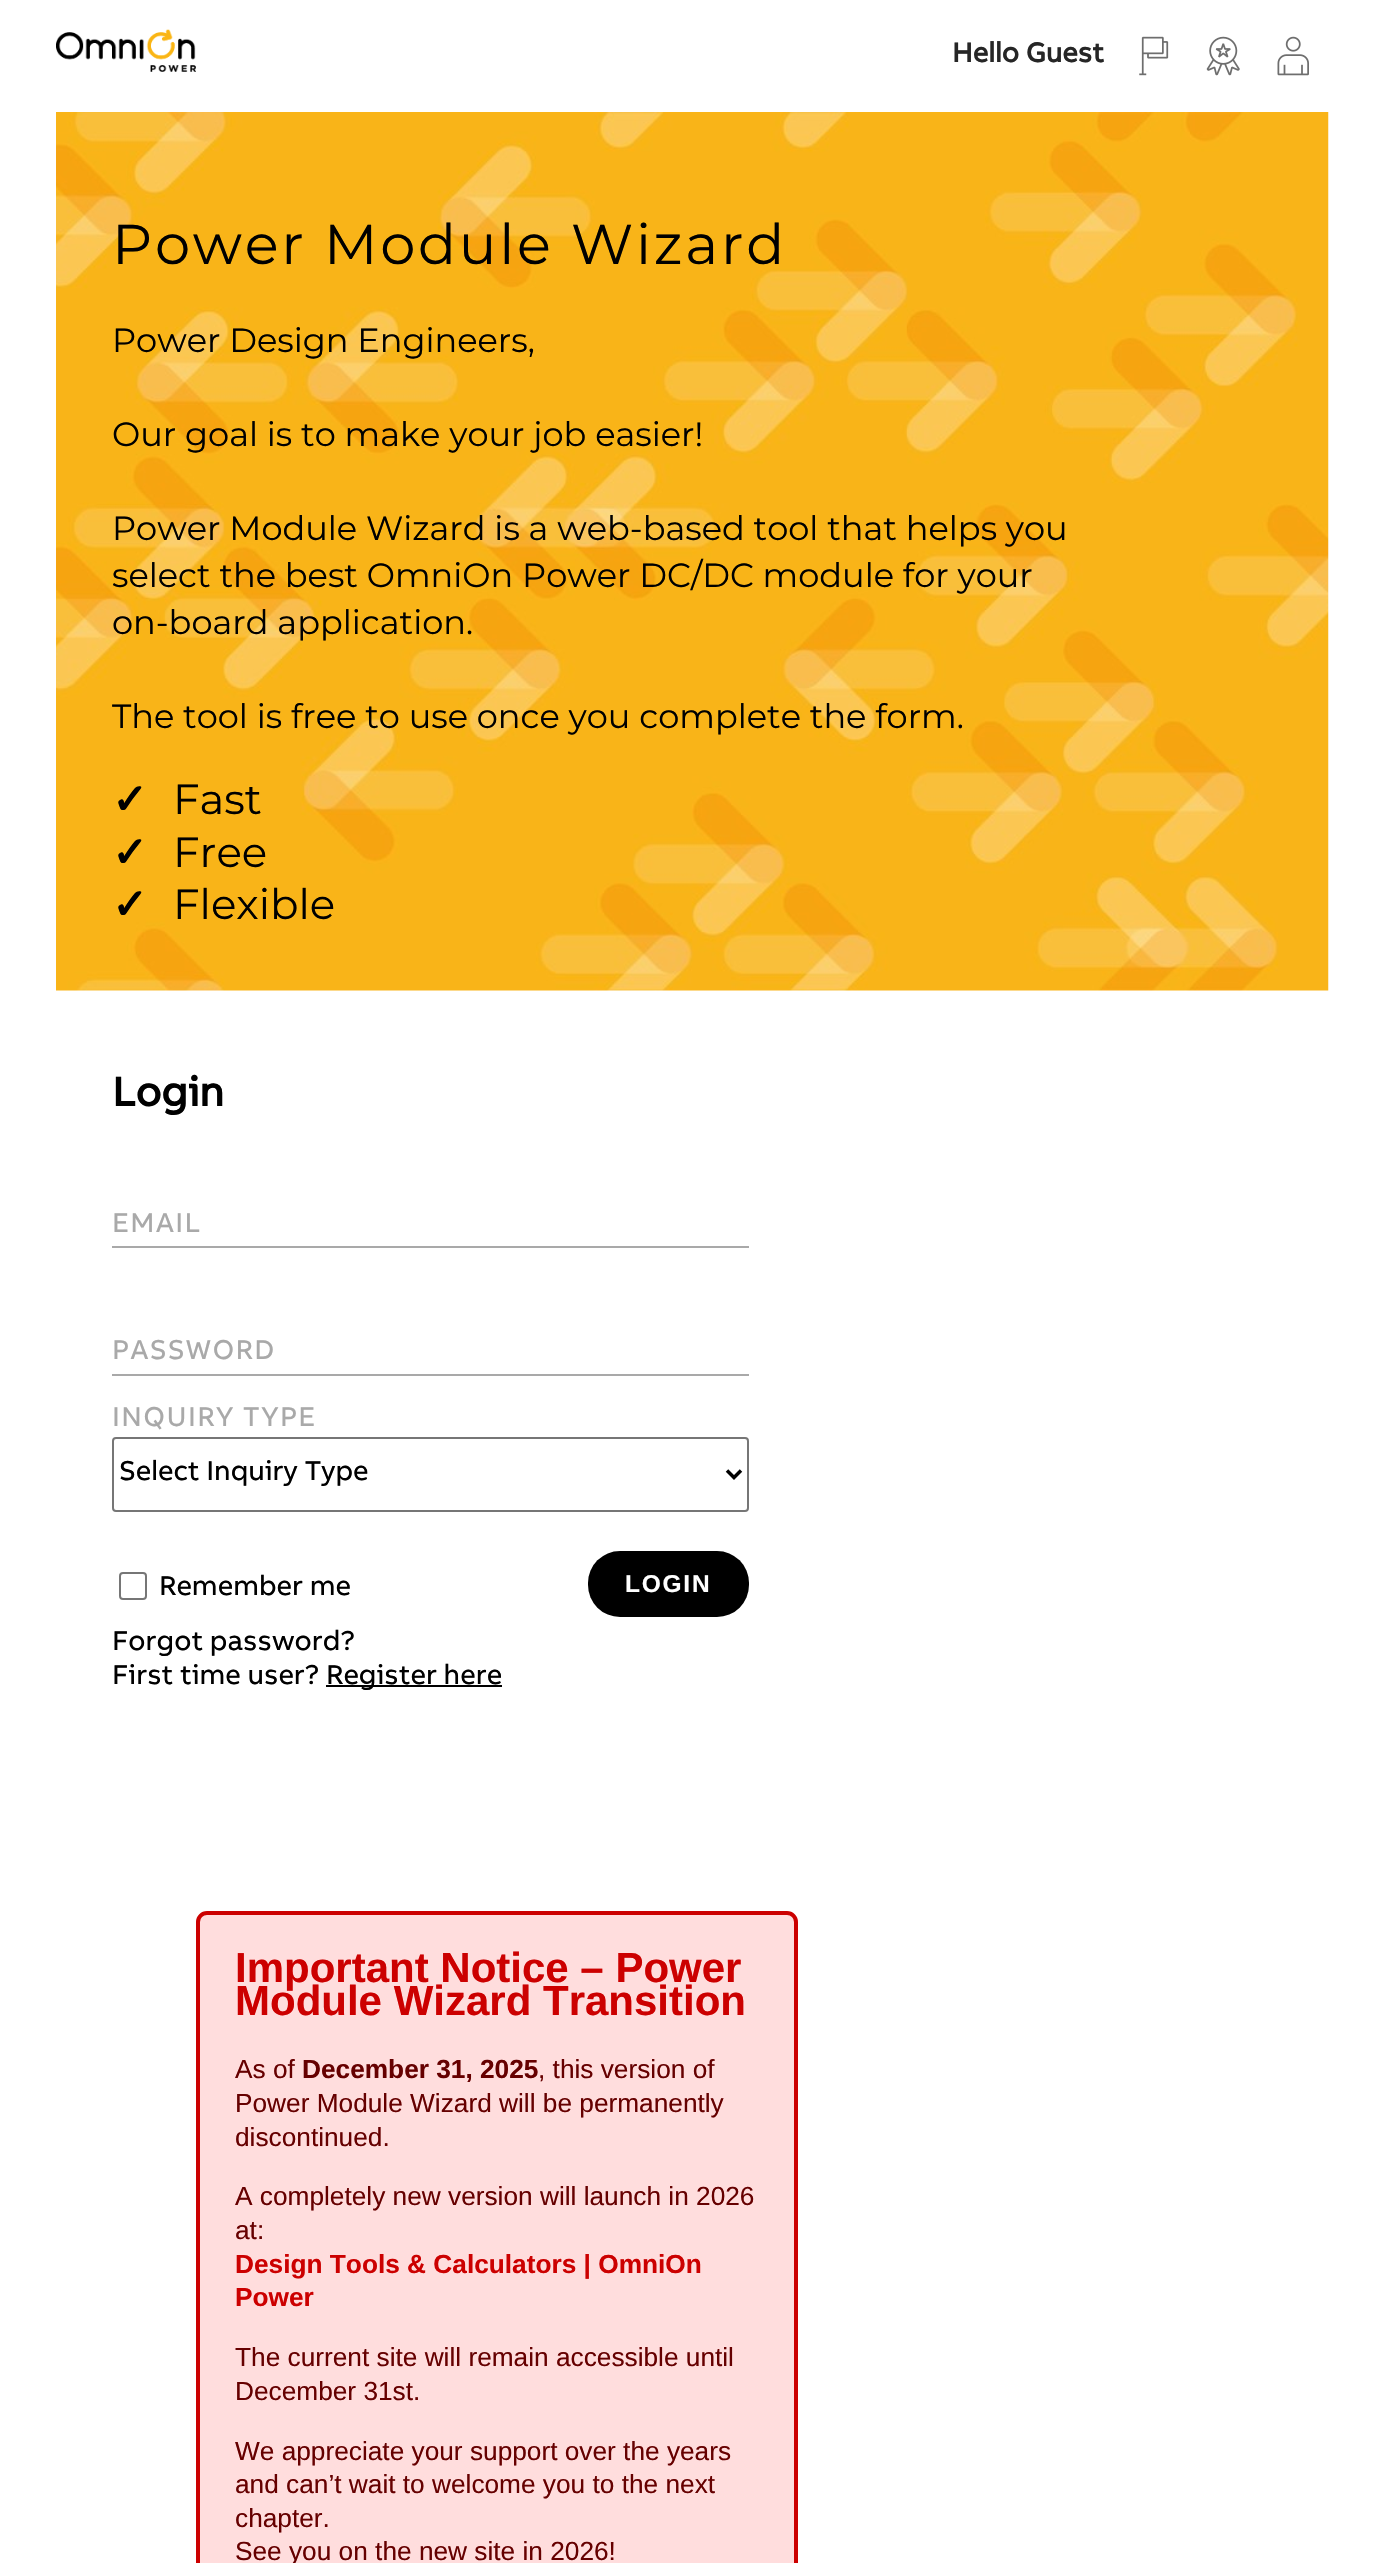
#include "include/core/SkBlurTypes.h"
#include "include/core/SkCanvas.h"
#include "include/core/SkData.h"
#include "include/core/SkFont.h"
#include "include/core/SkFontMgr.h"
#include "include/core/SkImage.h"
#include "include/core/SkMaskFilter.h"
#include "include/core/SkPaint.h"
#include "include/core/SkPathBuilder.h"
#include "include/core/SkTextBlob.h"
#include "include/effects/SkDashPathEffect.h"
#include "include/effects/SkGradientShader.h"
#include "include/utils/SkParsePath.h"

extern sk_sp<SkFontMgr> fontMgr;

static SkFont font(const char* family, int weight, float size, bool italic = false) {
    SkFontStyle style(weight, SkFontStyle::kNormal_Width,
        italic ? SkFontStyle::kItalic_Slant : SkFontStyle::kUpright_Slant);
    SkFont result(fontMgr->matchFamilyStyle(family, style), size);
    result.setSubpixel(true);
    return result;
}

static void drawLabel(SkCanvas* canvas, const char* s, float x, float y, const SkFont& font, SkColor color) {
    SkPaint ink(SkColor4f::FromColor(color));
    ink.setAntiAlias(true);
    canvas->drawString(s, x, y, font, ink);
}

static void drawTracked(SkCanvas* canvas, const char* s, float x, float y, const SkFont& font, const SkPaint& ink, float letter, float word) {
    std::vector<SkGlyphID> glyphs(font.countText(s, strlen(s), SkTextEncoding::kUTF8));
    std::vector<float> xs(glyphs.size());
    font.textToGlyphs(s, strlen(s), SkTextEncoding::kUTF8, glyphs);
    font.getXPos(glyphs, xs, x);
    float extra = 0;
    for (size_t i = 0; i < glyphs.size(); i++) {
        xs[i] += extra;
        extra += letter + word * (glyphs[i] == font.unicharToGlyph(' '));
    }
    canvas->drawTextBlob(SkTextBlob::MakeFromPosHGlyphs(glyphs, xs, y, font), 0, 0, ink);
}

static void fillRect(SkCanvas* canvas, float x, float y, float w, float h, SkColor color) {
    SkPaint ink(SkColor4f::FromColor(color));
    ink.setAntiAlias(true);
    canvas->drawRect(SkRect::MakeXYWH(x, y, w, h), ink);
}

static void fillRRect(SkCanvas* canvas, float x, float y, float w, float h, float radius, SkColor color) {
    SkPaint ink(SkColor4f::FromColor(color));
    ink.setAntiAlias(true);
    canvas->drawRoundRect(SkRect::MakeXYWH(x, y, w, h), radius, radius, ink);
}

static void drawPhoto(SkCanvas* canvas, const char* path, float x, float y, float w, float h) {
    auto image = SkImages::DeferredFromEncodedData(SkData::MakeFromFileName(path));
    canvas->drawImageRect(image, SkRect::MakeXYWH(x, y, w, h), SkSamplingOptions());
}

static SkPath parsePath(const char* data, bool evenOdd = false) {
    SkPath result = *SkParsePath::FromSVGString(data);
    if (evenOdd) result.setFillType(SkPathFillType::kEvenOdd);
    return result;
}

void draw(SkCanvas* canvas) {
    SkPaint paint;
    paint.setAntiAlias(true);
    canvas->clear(0xFFFFFFFF);
    drawPhoto(canvas, "assets/img1.png", 56, 29, 140, 43);
    SkFont font1 = font("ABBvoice", 700, 28);
    drawLabel(canvas, "Hello Guest", 952, 62, font1, 0xFF262626);
    drawPhoto(canvas, "assets/img2.png", 1139, 36, 30, 40);
    drawPhoto(canvas, "assets/img3.png", 1206, 36, 34, 40);
    drawPhoto(canvas, "assets/img4.png", 1277, 36, 32, 40);
    drawPhoto(canvas, "assets/img5.png", 56, 112, 1273, 879);
    SkFont font2 = font("Montserrat", 400, 56);
    paint.setColor(0xFF000000);
    drawTracked(canvas, "Power Module Wizard", 112, 264, font2, paint, 2.75f, 0);
    SkFont font3 = font("Montserrat", 400, 33.6f);
    drawLabel(canvas, "Power Design Engineers,", 112, 352, font3, 0xFF000000);
    drawLabel(canvas, "Our goal is to make your job easier!", 112, 446, font3, 0xFF000000);
    drawLabel(canvas, "Power Module Wizard is a web-based tool that helps you", 112, 540, font3, 0xFF000000);
    drawLabel(canvas, "select the best OmniOn Power DC/DC module for your", 112, 587, font3, 0xFF000000);
    drawLabel(canvas, "on-board application.", 112, 634, font3, 0xFF000000);
    drawLabel(canvas, "The tool is free to use once you complete the form.", 112, 728, font3, 0xFF000000);
    SkFont font4 = font("DejaVu Sans", 700, 42);
    drawLabel(canvas, "✓", 112, 814, font4, 0xFF000000);
    SkFont font5 = font("Montserrat", 400, 42);
    drawLabel(canvas, "Fast", 173, 814, font5, 0xFF000000);
    drawLabel(canvas, "✓", 112, 867, font4, 0xFF000000);
    drawLabel(canvas, "Free", 173, 867, font5, 0xFF000000);
    drawLabel(canvas, "✓", 112, 919, font4, 0xFF000000);
    drawLabel(canvas, "Flexible", 173, 919, font5, 0xFF000000);
    SkFont font6 = font("ABBvoice", 700, 42);
    drawLabel(canvas, "Login", 112, 1106, font6, 0xFF000000);
    SkFont font7 = font("ABBvoice", 400, 28);
    paint.setColor(0xFFA9A9A9);
    drawTracked(canvas, "EMAIL", 112, 1232, font7, paint, 1.4f, 0);
    fillRect(canvas, 112, 1246, 637, 2, 0xFFA9A9A9);
    drawTracked(canvas, "PASSWORD", 112, 1359, font7, paint, 1.4f, 0);
    fillRect(canvas, 112, 1374, 637, 2, 0xFFA9A9A9);
    drawTracked(canvas, "INQUIRY TYPE", 112, 1426, font7, paint, 1.4f, 0);
    paint.setStroke(true);
    paint.setStrokeWidth(2);
    paint.setColor(0xFF767676);
    canvas->drawRoundRect(SkRect::MakeXYWH(113, 1438, 635, 73), 3, 3, paint);
    paint.setStrokeWidth(3.5f);
    paint.setColor(0xFF000000);
    canvas->drawPath(parsePath("M727 1470.5L734 1477.5L741 1470.5"), paint);
    drawLabel(canvas, "Select Inquiry Type", 119, 1480, font7, 0xFF000000);
    paint.setStrokeWidth(2);
    paint.setColor(0xFF767676);
    canvas->drawRoundRect(SkRect::MakeXYWH(120, 1573, 26, 26), 3, 3, paint);
    drawLabel(canvas, "Remember me", 159, 1595, font7, 0xFF000000);
    fillRRect(canvas, 588, 1551, 161, 66, 32, 0xFF000000);
    SkFont font8 = font("Liberation Sans", 700, 24.5f);
    paint.setStroke(false);
    paint.setColor(0xFFFFFFFF);
    drawTracked(canvas, "LOGIN", 625, 1592, font8, paint, 1.75f, 0);
    drawLabel(canvas, "Forgot password?", 112, 1650, font7, 0xFF000000);
    drawLabel(canvas, "First time user?", 112, 1684, font7, 0xFF000000);
    fillRect(canvas, 326, 1685, 176, 2, 0xFF000000);
    drawLabel(canvas, "Register here", 326, 1684, font7, 0xFF000000);
    paint.setColor(0xFFFFDDDD);
    canvas->drawRoundRect(SkRect::MakeXYWH(198, 1913, 598, 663), 9, 9, paint);
    paint.setStroke(true);
    paint.setStrokeWidth(4);
    paint.setColor(0xFFCC0000);
    canvas->drawRoundRect(SkRect::MakeXYWH(198, 1913, 598, 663), 9, 9, paint);
    SkFont font9 = font("Liberation Sans", 700, 42);
    drawLabel(canvas, "Important Notice – Power", 235, 1982, font9, 0xFFCC0000);
    drawLabel(canvas, "Module Wizard Transition", 235, 2015, font9, 0xFFCC0000);
    SkFont font10 = font("Liberation Sans", 400, 26.25f);
    drawLabel(canvas, "As of", 235, 2078, font10, 0xFF660000);
    SkFont font11 = font("Liberation Sans", 700, 26.25f);
    drawLabel(canvas, "December 31, 2025", 302, 2078, font11, 0xFF660000);
    drawLabel(canvas, ", this version of", 538, 2078, font10, 0xFF660000);
    drawLabel(canvas, "Power Module Wizard will be permanently", 235, 2112, font10, 0xFF660000);
    drawLabel(canvas, "discontinued.", 235, 2146, font10, 0xFF660000);
    drawLabel(canvas, "A completely new version will launch in 2026", 235, 2205, font10, 0xFF660000);
    drawLabel(canvas, "at:", 235, 2239, font10, 0xFF660000);
    drawLabel(canvas, "Design Tools & Calculators | OmniOn", 235, 2273, font11, 0xFFCC0000);
    drawLabel(canvas, "Power", 235, 2306, font11, 0xFFCC0000);
    drawLabel(canvas, "The current site will remain accessible until", 235, 2366, font10, 0xFF660000);
    drawLabel(canvas, "December 31st.", 235, 2400, font10, 0xFF660000);
    drawLabel(canvas, "We appreciate your support over the years", 235, 2460, font10, 0xFF660000);
    drawLabel(canvas, "and can’t wait to welcome you to the next", 235, 2493, font10, 0xFF660000);
    drawLabel(canvas, "chapter.", 235, 2527, font10, 0xFF660000);
    drawLabel(canvas, "See you on the new site in 2026!", 235, 2560, font10, 0xFF660000);
}
